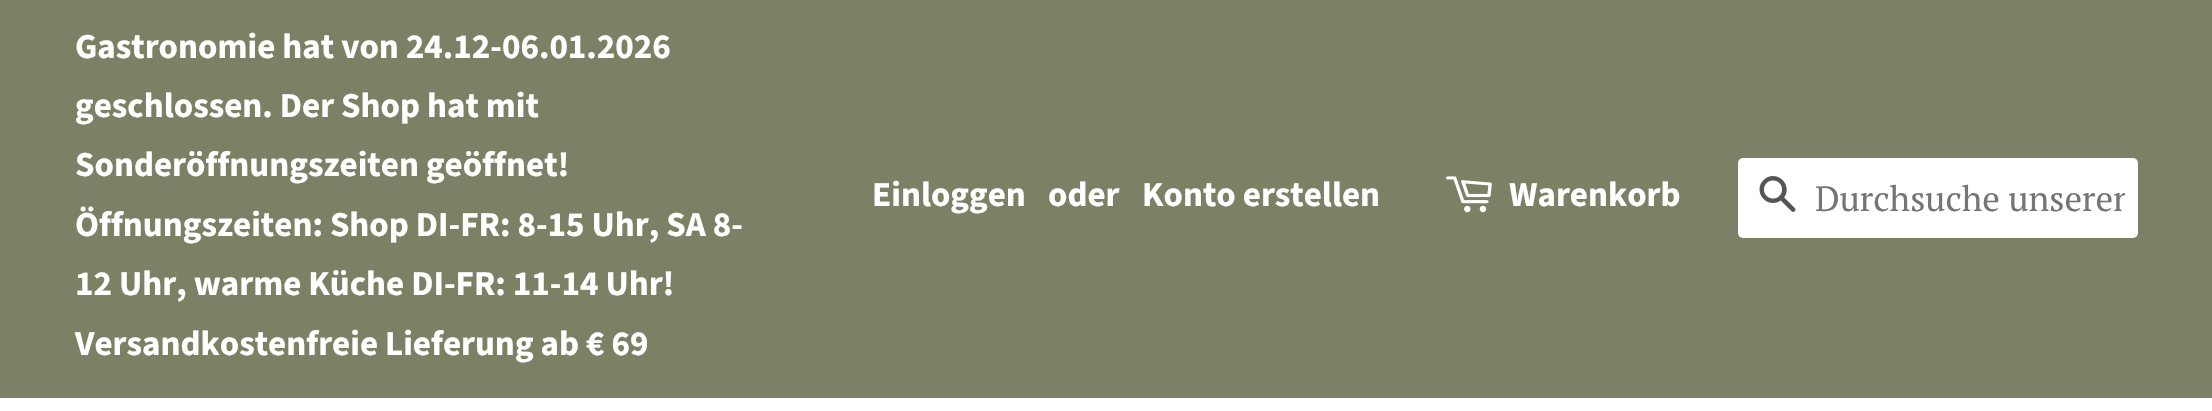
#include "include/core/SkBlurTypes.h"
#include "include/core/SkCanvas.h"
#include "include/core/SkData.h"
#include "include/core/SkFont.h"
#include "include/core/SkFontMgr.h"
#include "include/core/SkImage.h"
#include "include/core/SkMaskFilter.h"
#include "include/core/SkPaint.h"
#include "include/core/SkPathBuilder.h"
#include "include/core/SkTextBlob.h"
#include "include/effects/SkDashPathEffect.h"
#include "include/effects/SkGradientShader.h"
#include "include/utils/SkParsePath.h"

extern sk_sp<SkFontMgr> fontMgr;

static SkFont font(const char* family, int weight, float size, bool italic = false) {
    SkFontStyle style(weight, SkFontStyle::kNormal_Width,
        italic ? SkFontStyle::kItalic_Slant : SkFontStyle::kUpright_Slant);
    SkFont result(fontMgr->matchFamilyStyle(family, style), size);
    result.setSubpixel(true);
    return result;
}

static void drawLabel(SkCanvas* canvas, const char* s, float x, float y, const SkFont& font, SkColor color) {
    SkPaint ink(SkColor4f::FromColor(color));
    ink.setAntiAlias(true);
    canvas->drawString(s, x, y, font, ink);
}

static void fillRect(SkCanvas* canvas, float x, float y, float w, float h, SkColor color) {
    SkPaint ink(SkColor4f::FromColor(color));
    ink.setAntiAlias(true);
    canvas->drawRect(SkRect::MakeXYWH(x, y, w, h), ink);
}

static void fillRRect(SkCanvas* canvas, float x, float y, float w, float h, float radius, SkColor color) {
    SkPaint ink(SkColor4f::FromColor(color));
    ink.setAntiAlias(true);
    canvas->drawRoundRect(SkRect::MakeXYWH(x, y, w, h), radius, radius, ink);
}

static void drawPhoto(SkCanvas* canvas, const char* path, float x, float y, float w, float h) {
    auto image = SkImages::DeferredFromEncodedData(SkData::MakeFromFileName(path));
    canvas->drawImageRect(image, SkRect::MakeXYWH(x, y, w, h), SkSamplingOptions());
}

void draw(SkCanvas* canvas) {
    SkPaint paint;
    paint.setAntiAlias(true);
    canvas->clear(0xFFFFFFFF);
    fillRect(canvas, 0, 0, 2212, 398, 0xFF7C8064);
    SkFont font1 = font("Source Sans Pro", 700, 35);
    drawLabel(canvas, "Gastronomie hat von 24.12-06.01.2026", 75, 58, font1, 0xFFFFFFFF);
    drawLabel(canvas, "geschlossen. Der Shop hat mit", 75, 117, font1, 0xFFFFFFFF);
    drawLabel(canvas, "Sonderöffnungszeiten geöffnet!", 75, 176, font1, 0xFFFFFFFF);
    drawLabel(canvas, "Öffnungszeiten: Shop DI-FR: 8-15 Uhr, SA 8-", 75, 236, font1, 0xFFFFFFFF);
    drawLabel(canvas, "12 Uhr, warme Küche DI-FR: 11-14 Uhr!", 75, 295, font1, 0xFFFFFFFF);
    drawLabel(canvas, "Versandkostenfreie Lieferung ab € 69", 75, 355, font1, 0xFFFFFFFF);
    drawLabel(canvas, "Einloggen", 872, 206, font1, 0xFFFFFFFF);
    drawLabel(canvas, "oder", 1048, 206, font1, 0xFFFFFFFF);
    drawLabel(canvas, "Konto erstellen", 1142, 206, font1, 0xFFFFFFFF);
    drawPhoto(canvas, "assets/img1.png", 1446, 176, 46, 37);
    drawLabel(canvas, "Warenkorb", 1509, 206, font1, 0xFFFFFFFF);
    fillRRect(canvas, 1738, 158, 400, 80, 5, 0xFFFFFFFF);
    drawPhoto(canvas, "assets/img2.png", 1759, 176, 37, 36);
    canvas->save();
    canvas->clipRect(SkRect::MakeXYWH(1815, 173, 310, 47));
    SkFont font2 = font("PT Serif", 400, 35);
    drawLabel(canvas, "Durchsuche unseren", 1815, 211, font2, 0xFF757575);
    canvas->restore();
}
